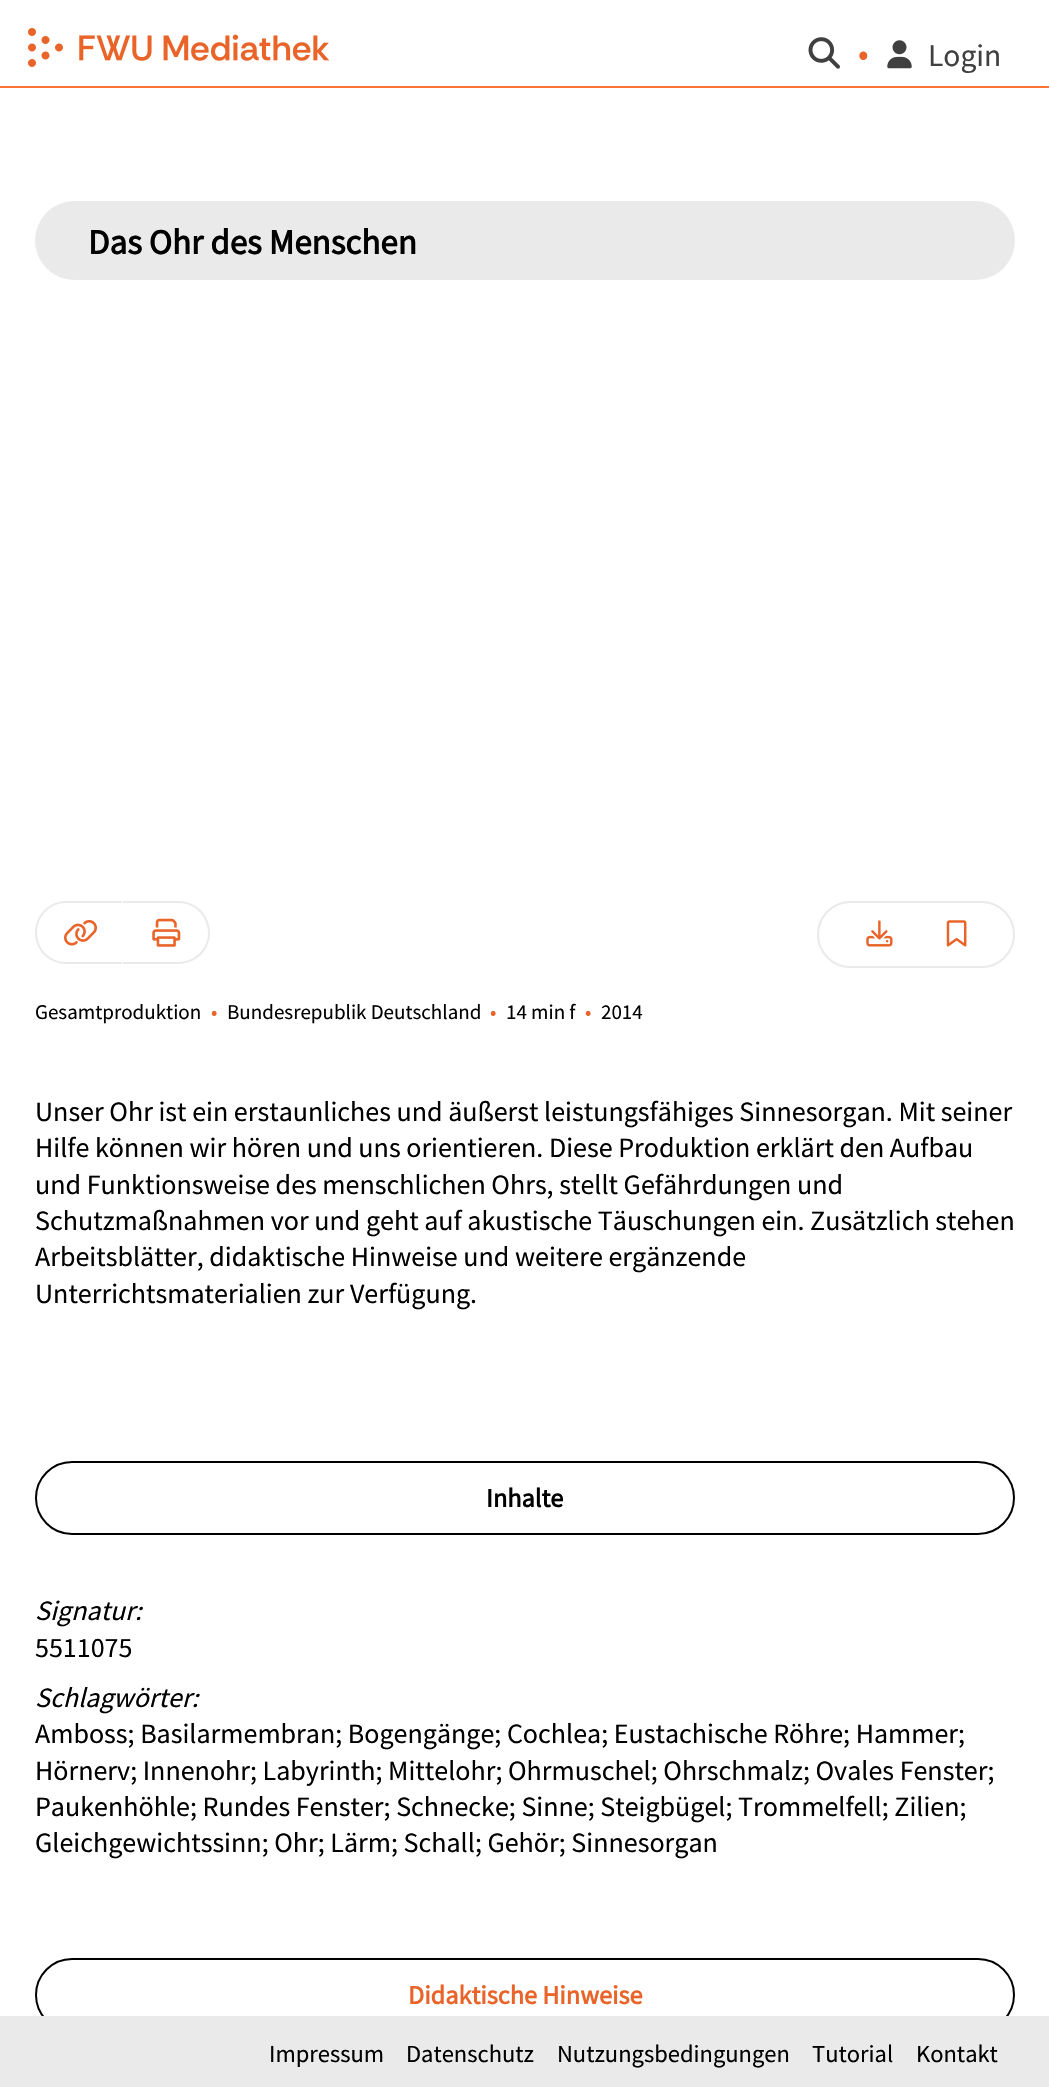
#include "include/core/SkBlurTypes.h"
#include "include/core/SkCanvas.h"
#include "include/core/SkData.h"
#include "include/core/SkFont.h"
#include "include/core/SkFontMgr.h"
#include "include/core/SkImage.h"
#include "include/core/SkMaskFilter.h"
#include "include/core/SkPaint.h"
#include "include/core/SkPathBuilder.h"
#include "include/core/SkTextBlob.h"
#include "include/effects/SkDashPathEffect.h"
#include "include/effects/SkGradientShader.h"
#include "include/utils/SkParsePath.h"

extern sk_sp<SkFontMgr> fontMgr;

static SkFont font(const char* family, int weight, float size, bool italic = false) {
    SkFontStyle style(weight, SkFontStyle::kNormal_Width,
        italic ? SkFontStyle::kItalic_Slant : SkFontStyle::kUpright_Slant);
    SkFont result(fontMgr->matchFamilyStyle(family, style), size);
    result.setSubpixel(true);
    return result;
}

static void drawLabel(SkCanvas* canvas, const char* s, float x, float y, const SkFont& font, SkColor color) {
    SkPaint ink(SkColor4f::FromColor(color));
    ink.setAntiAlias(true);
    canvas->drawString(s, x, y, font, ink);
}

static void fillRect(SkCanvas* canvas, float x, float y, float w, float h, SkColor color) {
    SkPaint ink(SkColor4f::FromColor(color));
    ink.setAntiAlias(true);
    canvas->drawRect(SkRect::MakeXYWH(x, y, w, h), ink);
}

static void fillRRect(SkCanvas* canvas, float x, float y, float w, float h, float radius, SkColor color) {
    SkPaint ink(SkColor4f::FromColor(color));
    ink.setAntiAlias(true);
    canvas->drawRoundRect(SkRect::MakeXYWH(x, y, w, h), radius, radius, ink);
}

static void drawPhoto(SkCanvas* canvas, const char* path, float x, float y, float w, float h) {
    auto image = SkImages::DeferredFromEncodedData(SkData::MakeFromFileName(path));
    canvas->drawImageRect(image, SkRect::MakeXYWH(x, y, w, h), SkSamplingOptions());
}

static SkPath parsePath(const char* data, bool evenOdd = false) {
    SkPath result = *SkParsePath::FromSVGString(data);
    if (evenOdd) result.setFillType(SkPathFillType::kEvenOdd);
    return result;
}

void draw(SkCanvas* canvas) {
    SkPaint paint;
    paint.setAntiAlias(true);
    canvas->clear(0xFFFFFFFF);
    fillRect(canvas, 0, 86, 1049, 2, 0xFFFE7235);
    drawPhoto(canvas, "assets/img1.png", 28, 28, 301, 39);
    drawPhoto(canvas, "assets/img2.png", 808, 37, 32, 32);
    SkFont font1 = font("Source Sans Pro", 400, 35);
    drawLabel(canvas, "•", 858, 65, font1, 0xFFE96429);
    drawPhoto(canvas, "assets/img3.png", 887, 40, 25, 29);
    SkFont font2 = font("Source Sans Pro", 400, 31.5f);
    drawLabel(canvas, "Login", 928, 66, font2, 0xFF404040);
    fillRRect(canvas, 35, 201, 980, 79, 39.5f, 0xFFEAEAEA);
    SkFont font3 = font("Source Sans Pro", 700, 35);
    drawLabel(canvas, "Das Ohr des Menschen", 88, 254, font3, 0xFF000000);
    paint.setColor(0xFFEAEAEA);
    canvas->drawPath(parsePath("M122 901H178C196 901 210 915 210 933C210 950 196 964 178 964H122ZM122 903H178C195 903 208 916 208 933C208 949 195 962 178 962H122Z", true), paint);
    paint.setColor(0xFFFFFFFF);
    canvas->drawPath(parsePath("M66.5 901H123V964H66.5C49 964 35 950 35 932.5C35 915 49 901 66.5 901Z"), paint);
    paint.setColor(0xFFEAEAEA);
    canvas->drawPath(parsePath("M66 901H122V964H66C49 964 35 950 35 933C35 915 49 901 66 901ZM66 903H122V962H66C50 962 37 949 37 933C37 916 50 903 66 903Z", true), paint);
    drawPhoto(canvas, "assets/img4.png", 64, 919, 33, 27);
    drawPhoto(canvas, "assets/img5.png", 152, 918, 29, 29);
    paint.setStroke(true);
    paint.setStrokeWidth(2);
    canvas->drawRoundRect(SkRect::MakeXYWH(818, 902, 196, 65), 32.5f, 32.5f, paint);
    drawPhoto(canvas, "assets/img6.png", 866, 920, 27, 27);
    drawPhoto(canvas, "assets/img7.png", 946, 920, 21, 27);
    SkFont font4 = font("Source Sans Pro", 400, 21);
    drawLabel(canvas, "Gesamtproduktion", 35, 1019, font4, 0xFF000000);
    drawLabel(canvas, "•", 211, 1019, font4, 0xFFE96429);
    drawLabel(canvas, "Bundesrepublik Deutschland", 227, 1019, font4, 0xFF000000);
    drawLabel(canvas, "•", 490, 1019, font4, 0xFFE96429);
    drawLabel(canvas, "14 min f", 506, 1019, font4, 0xFF000000);
    drawLabel(canvas, "•", 585, 1019, font4, 0xFFE96429);
    drawLabel(canvas, "2014", 601, 1019, font4, 0xFF000000);
    SkFont font5 = font("Source Sans Pro", 400, 28);
    drawLabel(canvas, "Unser Ohr ist ein erstaunliches und äußerst leistungsfähiges Sinnesorgan. Mit seiner", 35, 1121, font5, 0xFF000000);
    drawLabel(canvas, "Hilfe können wir hören und uns orientieren. Diese Produktion erklärt den Aufbau", 35, 1157, font5, 0xFF000000);
    drawLabel(canvas, "und Funktionsweise des menschlichen Ohrs, stellt Gefährdungen und", 35, 1194, font5, 0xFF000000);
    drawLabel(canvas, "Schutzmaßnahmen vor und geht auf akustische Täuschungen ein. Zusätzlich stehen", 35, 1230, font5, 0xFF000000);
    drawLabel(canvas, "Arbeitsblätter, didaktische Hinweise und weitere ergänzende", 35, 1266, font5, 0xFF000000);
    drawLabel(canvas, "Unterrichtsmaterialien zur Verfügung.", 35, 1303, font5, 0xFF000000);
    paint.setColor(0xFF000000);
    canvas->drawRoundRect(SkRect::MakeXYWH(36, 1462, 978, 72), 36, 36, paint);
    SkFont font6 = font("Source Sans Pro", 700, 26.25f);
    drawLabel(canvas, "Inhalte", 486, 1507, font6, 0xFF000000);
    SkFont font7 = font("Source Sans Pro", 400, 28, true);
    drawLabel(canvas, "Signatur:", 35, 1620, font7, 0xFF000000);
    drawLabel(canvas, "5511075", 35, 1657, font5, 0xFF000000);
    drawLabel(canvas, "Schlagwörter:", 35, 1707, font7, 0xFF000000);
    drawLabel(canvas, "Amboss; Basilarmembran; Bogengänge; Cochlea; Eustachische Röhre; Hammer;", 35, 1743, font5, 0xFF000000);
    drawLabel(canvas, "Hörnerv; Innenohr; Labyrinth; Mittelohr; Ohrmuschel; Ohrschmalz; Ovales Fenster;", 35, 1780, font5, 0xFF000000);
    drawLabel(canvas, "Paukenhöhle; Rundes Fenster; Schnecke; Sinne; Steigbügel; Trommelfell; Zilien;", 35, 1816, font5, 0xFF000000);
    drawLabel(canvas, "Gleichgewichtssinn; Ohr; Lärm; Schall; Gehör; Sinnesorgan", 35, 1852, font5, 0xFF000000);
    canvas->drawRoundRect(SkRect::MakeXYWH(36, 1959, 978, 72), 36, 36, paint);
    drawLabel(canvas, "Didaktische Hinweise", 408, 2004, font6, 0xFFE96429);
    fillRect(canvas, 0, 2016, 1049, 71, 0xFFEAEAEA);
    SkFont font8 = font("Source Sans Pro", 400, 24.5f);
    drawLabel(canvas, "Impressum", 269, 2062, font8, 0xFF000000);
    drawLabel(canvas, "Datenschutz", 406, 2062, font8, 0xFF000000);
    drawLabel(canvas, "Nutzungsbedingungen", 557, 2062, font8, 0xFF000000);
    drawLabel(canvas, "Tutorial", 812, 2062, font8, 0xFF000000);
    drawLabel(canvas, "Kontakt", 916, 2062, font8, 0xFF000000);
}
